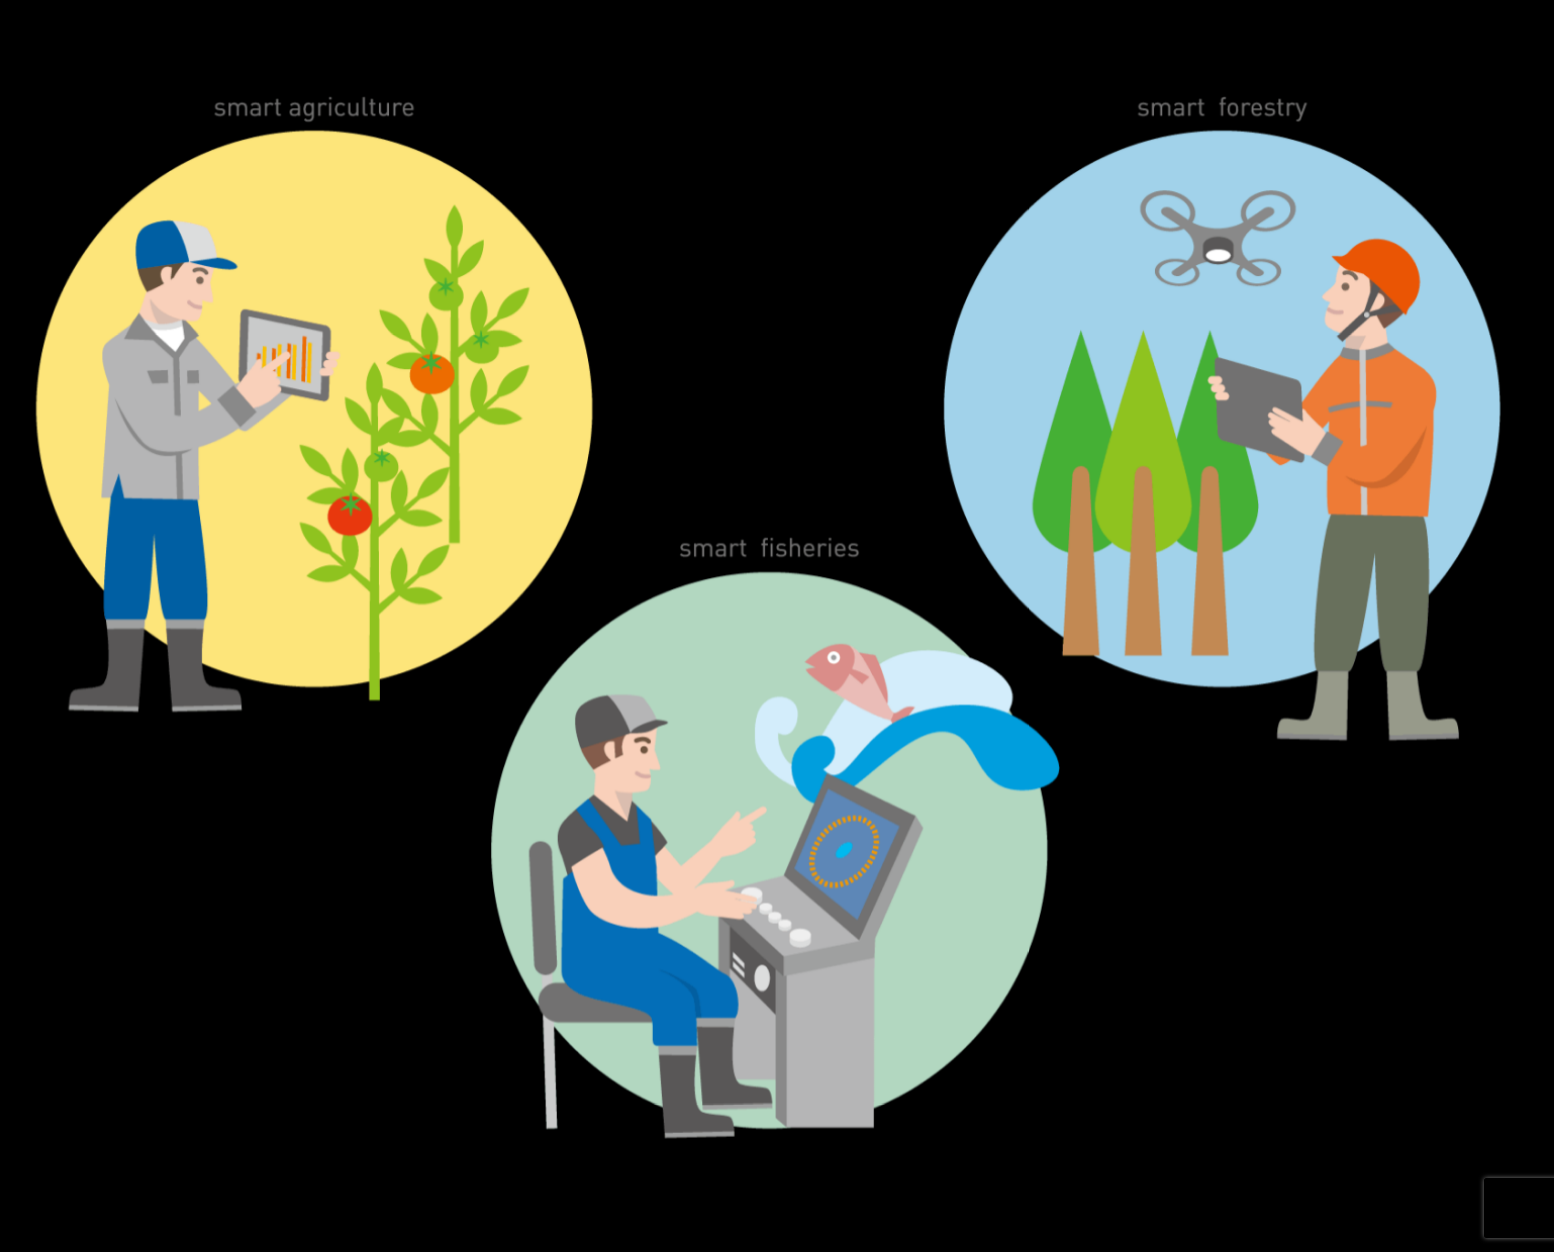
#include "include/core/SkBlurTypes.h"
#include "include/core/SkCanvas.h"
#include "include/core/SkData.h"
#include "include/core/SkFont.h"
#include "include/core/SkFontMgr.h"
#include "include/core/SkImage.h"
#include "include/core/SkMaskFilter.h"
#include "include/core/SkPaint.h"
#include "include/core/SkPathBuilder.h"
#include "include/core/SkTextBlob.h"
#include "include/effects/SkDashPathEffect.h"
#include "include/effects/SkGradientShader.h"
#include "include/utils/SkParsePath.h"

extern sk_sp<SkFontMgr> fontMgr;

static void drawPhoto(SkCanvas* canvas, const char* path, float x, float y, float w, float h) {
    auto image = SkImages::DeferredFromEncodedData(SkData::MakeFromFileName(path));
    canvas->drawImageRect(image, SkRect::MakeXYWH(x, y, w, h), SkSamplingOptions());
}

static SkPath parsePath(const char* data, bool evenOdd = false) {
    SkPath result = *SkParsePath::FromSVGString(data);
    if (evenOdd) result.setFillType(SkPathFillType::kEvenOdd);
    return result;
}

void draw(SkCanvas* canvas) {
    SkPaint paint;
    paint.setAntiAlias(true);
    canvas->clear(0xFF000000);
    drawPhoto(canvas, "assets/img1.png", 35, 96, 1466, 1043);
    canvas->save();
    canvas->clipPath(parsePath("M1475 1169H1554V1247H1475ZM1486 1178H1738C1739 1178 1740 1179 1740 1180V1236C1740 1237 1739 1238 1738 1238H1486C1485 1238 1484 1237 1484 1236V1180C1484 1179 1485 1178 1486 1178Z", true), true);
    paint.setColor(0xFF808080);
    paint.setMaskFilter(SkMaskFilter::MakeBlur(kNormal_SkBlurStyle, 2.5f));
    canvas->drawRoundRect(SkRect::MakeXYWH(1484, 1178, 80, 60), 2, 2, paint);
    paint.setMaskFilter(nullptr);
    canvas->restore();
}
